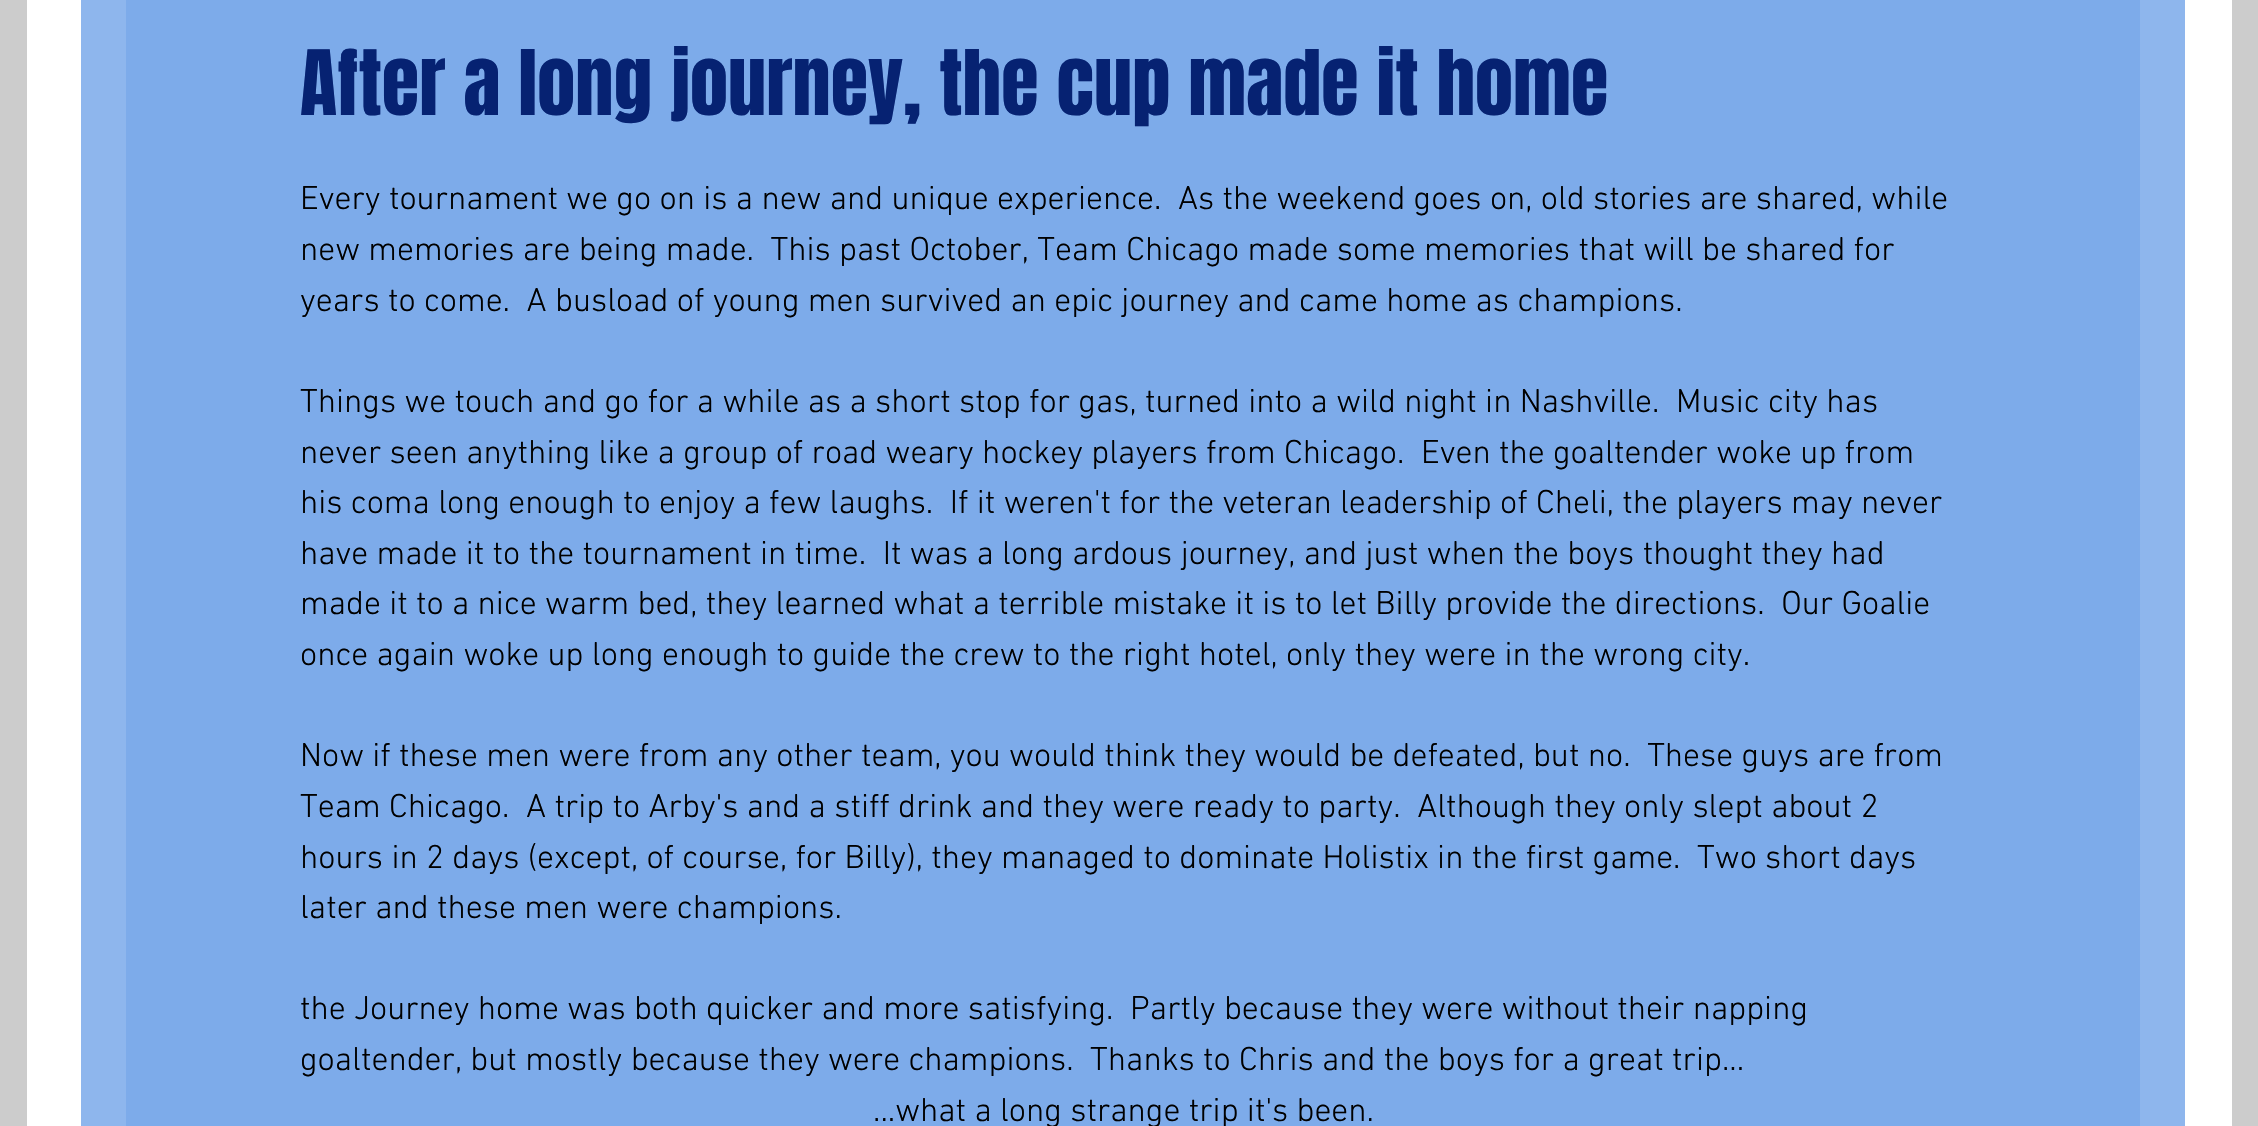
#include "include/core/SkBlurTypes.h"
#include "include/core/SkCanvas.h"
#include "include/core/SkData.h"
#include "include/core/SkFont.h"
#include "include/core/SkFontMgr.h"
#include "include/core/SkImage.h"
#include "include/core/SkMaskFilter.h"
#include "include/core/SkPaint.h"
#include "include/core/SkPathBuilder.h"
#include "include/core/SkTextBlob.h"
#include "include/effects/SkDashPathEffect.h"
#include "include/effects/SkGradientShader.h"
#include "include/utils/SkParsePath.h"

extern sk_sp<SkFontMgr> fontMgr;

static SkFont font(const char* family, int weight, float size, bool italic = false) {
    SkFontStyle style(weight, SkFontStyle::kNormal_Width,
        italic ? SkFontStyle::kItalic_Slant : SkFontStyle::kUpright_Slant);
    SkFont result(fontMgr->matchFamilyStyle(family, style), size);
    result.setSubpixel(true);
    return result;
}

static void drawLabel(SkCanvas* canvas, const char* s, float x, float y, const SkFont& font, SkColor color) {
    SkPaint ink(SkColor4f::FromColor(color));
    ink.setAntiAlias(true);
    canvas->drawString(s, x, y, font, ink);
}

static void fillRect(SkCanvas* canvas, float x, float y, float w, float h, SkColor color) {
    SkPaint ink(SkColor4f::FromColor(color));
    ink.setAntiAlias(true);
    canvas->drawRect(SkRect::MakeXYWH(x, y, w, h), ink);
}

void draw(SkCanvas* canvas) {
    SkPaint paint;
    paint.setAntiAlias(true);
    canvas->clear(0xFFCCCCCC);
    fillRect(canvas, 27, 0, 2205, 1126, 0xFFFFFFFF);
    fillRect(canvas, 81, 0, 2104, 1126, 0xFF8EB6ED);
    fillRect(canvas, 126, 0, 2014, 1126, 0xFF7DABEA);
    SkFont font1 = font("Anton", 400, 76.5f);
    drawLabel(canvas, "After a long journey, the cup made it home", 300, 115, font1, 0xFF062272);
    SkFont font2 = font("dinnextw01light", 300, 33.75f);
    drawLabel(canvas, "Every tournament we go on is a new and unique experience.  As the weekend goes on, old stories are shared, while", 300, 209, font2, 0xFF000000);
    drawLabel(canvas, "new memories are being made.  This past October, Team Chicago made some memories that will be shared for", 300, 260, font2, 0xFF000000);
    drawLabel(canvas, "years to come.  A busload of young men survived an epic journey and came home as champions.", 300, 311, font2, 0xFF000000);
    drawLabel(canvas, "Things we touch and go for a while as a short stop for gas, turned into a wild night in Nashville.  Music city has", 300, 412, font2, 0xFF000000);
    drawLabel(canvas, "never seen anything like a group of road weary hockey players from Chicago.  Even the goaltender woke up from", 300, 463, font2, 0xFF000000);
    drawLabel(canvas, "his coma long enough to enjoy a few laughs.  If it weren't for the veteran leadership of Cheli, the players may never", 300, 513, font2, 0xFF000000);
    drawLabel(canvas, "have made it to the tournament in time.  It was a long ardous journey, and just when the boys thought they had", 300, 564, font2, 0xFF000000);
    drawLabel(canvas, "made it to a nice warm bed, they learned what a terrible mistake it is to let Billy provide the directions.  Our Goalie", 300, 614, font2, 0xFF000000);
    drawLabel(canvas, "once again woke up long enough to guide the crew to the right hotel, only they were in the wrong city.", 300, 665, font2, 0xFF000000);
    drawLabel(canvas, "Now if these men were from any other team, you would think they would be defeated, but no.  These guys are from", 300, 766, font2, 0xFF000000);
    drawLabel(canvas, "Team Chicago.  A trip to Arby's and a stiff drink and they were ready to party.  Although they only slept about 2", 300, 817, font2, 0xFF000000);
    drawLabel(canvas, "hours in 2 days (except, of course, for Billy), they managed to dominate Holistix in the first game.  Two short days", 300, 868, font2, 0xFF000000);
    drawLabel(canvas, "later and these men were champions.", 300, 918, font2, 0xFF000000);
    drawLabel(canvas, "the Journey home was both quicker and more satisfying.  Partly because they were without their napping", 300, 1019, font2, 0xFF000000);
    drawLabel(canvas, "goaltender, but mostly because they were champions.  Thanks to Chris and the boys for a great trip...", 300, 1070, font2, 0xFF000000);
    drawLabel(canvas, "...what a long strange trip it's been.", 873, 1121, font2, 0xFF000000);
}
